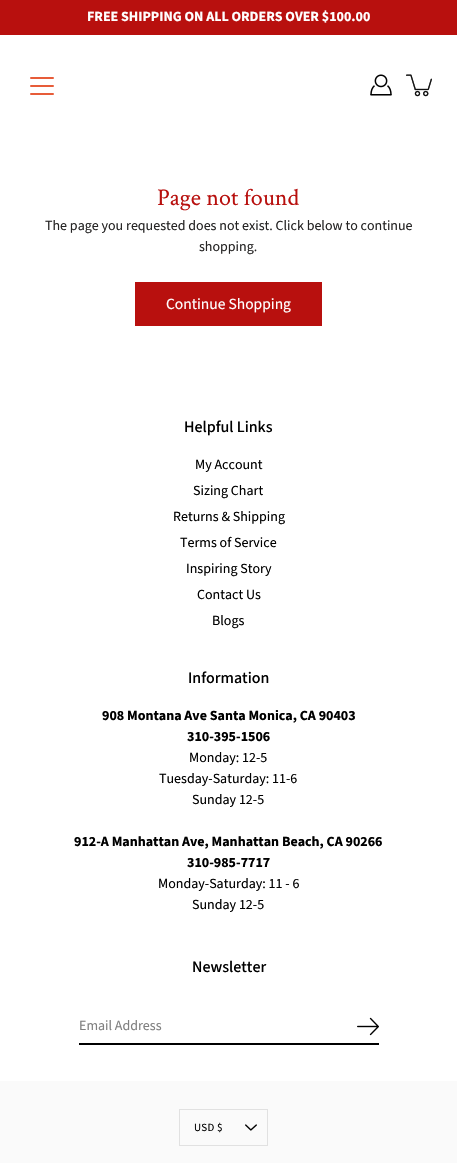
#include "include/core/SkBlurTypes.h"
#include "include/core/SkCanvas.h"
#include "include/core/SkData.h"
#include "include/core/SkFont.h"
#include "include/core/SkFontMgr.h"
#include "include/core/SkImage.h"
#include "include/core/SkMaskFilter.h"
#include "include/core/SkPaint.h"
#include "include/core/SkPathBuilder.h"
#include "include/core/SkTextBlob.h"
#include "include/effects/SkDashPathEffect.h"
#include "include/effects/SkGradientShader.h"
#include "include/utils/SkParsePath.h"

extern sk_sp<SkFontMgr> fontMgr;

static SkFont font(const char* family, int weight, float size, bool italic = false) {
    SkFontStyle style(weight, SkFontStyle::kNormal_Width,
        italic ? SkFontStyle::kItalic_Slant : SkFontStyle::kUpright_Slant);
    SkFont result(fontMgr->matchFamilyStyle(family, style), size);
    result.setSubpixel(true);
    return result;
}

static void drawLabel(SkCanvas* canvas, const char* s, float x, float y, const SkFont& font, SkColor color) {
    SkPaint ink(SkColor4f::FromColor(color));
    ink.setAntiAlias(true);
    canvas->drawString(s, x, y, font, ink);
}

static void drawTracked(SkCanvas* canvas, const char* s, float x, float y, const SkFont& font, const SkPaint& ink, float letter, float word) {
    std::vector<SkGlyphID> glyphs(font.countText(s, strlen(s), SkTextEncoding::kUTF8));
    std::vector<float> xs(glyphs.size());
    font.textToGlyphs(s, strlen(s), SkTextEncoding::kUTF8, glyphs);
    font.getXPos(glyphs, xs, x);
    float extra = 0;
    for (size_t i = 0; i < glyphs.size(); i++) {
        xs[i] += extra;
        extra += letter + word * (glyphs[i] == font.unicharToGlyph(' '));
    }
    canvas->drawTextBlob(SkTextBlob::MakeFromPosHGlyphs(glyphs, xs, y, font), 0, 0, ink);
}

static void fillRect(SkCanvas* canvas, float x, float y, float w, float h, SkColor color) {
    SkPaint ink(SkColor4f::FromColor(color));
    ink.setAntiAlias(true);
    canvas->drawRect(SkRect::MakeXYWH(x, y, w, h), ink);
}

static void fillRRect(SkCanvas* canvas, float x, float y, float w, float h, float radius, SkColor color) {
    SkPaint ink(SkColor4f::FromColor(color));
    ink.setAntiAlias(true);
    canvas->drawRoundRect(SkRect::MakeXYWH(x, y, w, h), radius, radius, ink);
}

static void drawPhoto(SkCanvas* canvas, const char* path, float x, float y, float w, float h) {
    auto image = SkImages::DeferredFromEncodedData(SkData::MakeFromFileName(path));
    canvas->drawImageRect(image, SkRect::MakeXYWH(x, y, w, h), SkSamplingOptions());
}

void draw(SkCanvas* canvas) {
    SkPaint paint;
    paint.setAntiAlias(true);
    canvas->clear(0xFFFFFFFF);
    fillRect(canvas, 0, 0, 457, 35, 0xFFB8100E);
    SkFont font1 = font("Source Sans Pro", 700, 14);
    drawLabel(canvas, "FREE SHIPPING ON ALL ORDERS OVER $100.00", 87, 21, font1, 0xFFFFFFFF);
    fillRRect(canvas, 30, 85, 24, 2, 1, 0xFFE75C39);
    fillRRect(canvas, 30, 77, 24, 2, 1, 0xFFE75C39);
    fillRRect(canvas, 30, 93, 24, 2, 1, 0xFFE75C39);
    drawPhoto(canvas, "assets/img1.png", 370, 74, 22, 22);
    drawPhoto(canvas, "assets/img2.png", 406, 74, 26, 23);
    SkFont font2 = font("Crimson Text", 400, 24);
    drawLabel(canvas, "Page not found", 157, 205, font2, 0xFFB8100E);
    SkFont font3 = font("Source Sans Pro", 400, 14);
    drawLabel(canvas, "The page you requested does not exist. Click below to continue", 45, 230, font3, 0xFF262525);
    drawLabel(canvas, "shopping.", 199, 251, font3, 0xFF262525);
    fillRect(canvas, 135, 282, 187, 44, 0xFFB8100E);
    SkFont font4 = font("Source Sans Pro", 400, 15.5f);
    drawLabel(canvas, "Continue Shopping", 166, 309, font4, 0xFFFFFFFF);
    SkFont font5 = font("Source Sans Pro", 500, 16);
    drawLabel(canvas, "Helpful Links", 184, 432, font5, 0xFF000000);
    drawLabel(canvas, "My Account", 195, 469, font3, 0xFF000000);
    drawLabel(canvas, "Sizing Chart", 193, 495, font3, 0xFF000000);
    drawLabel(canvas, "Returns & Shipping", 173, 521, font3, 0xFF000000);
    drawLabel(canvas, "Terms of Service", 180, 547, font3, 0xFF000000);
    drawLabel(canvas, "Inspiring Story", 186, 573, font3, 0xFF000000);
    drawLabel(canvas, "Contact Us", 197, 599, font3, 0xFF000000);
    drawLabel(canvas, "Blogs", 212, 625, font3, 0xFF000000);
    drawLabel(canvas, "Information", 188, 683, font5, 0xFF000000);
    drawLabel(canvas, "908 Montana Ave Santa Monica, CA 90403", 102, 720, font1, 0xFF000000);
    drawLabel(canvas, "310-395-1506", 187, 741, font1, 0xFF000000);
    drawLabel(canvas, "Monday: 12-5", 189, 762, font3, 0xFF000000);
    drawLabel(canvas, "Tuesday-Saturday: 11-6", 159, 783, font3, 0xFF000000);
    drawLabel(canvas, "Sunday 12-5", 192, 804, font3, 0xFF000000);
    drawLabel(canvas, "912-A Manhattan Ave, Manhattan Beach, CA 90266", 74, 846, font1, 0xFF000000);
    drawLabel(canvas, "310-985-7717", 187, 867, font1, 0xFF000000);
    drawLabel(canvas, "Monday-Saturday: 11 - 6", 158, 888, font3, 0xFF000000);
    drawLabel(canvas, "Sunday 12-5", 192, 909, font3, 0xFF000000);
    drawLabel(canvas, "Newsletter", 192, 972, font5, 0xFF000000);
    fillRect(canvas, 79, 1043, 300, 2, 0xFF000000);
    drawLabel(canvas, "Email Address", 79, 1030, font3, 0xFF808080);
    drawPhoto(canvas, "assets/img3.png", 357, 1017, 22, 19);
    fillRect(canvas, 0, 1081, 457, 82, 0xFFFAFAFA);
    paint.setStroke(true);
    paint.setStrokeWidth(1);
    paint.setColor(0xFFE1E1E1);
    canvas->drawRect(SkRect::MakeXYWH(179.5f, 1109.5f, 88, 36), paint);
    SkFont font6 = font("Source Sans Pro", 400, 11);
    paint.setStroke(false);
    paint.setColor(0xFF000000);
    drawTracked(canvas, "USD $", 194, 1131, font6, paint, 0.25f, 0);
    drawPhoto(canvas, "assets/img4.png", 245, 1124, 12, 7);
}
